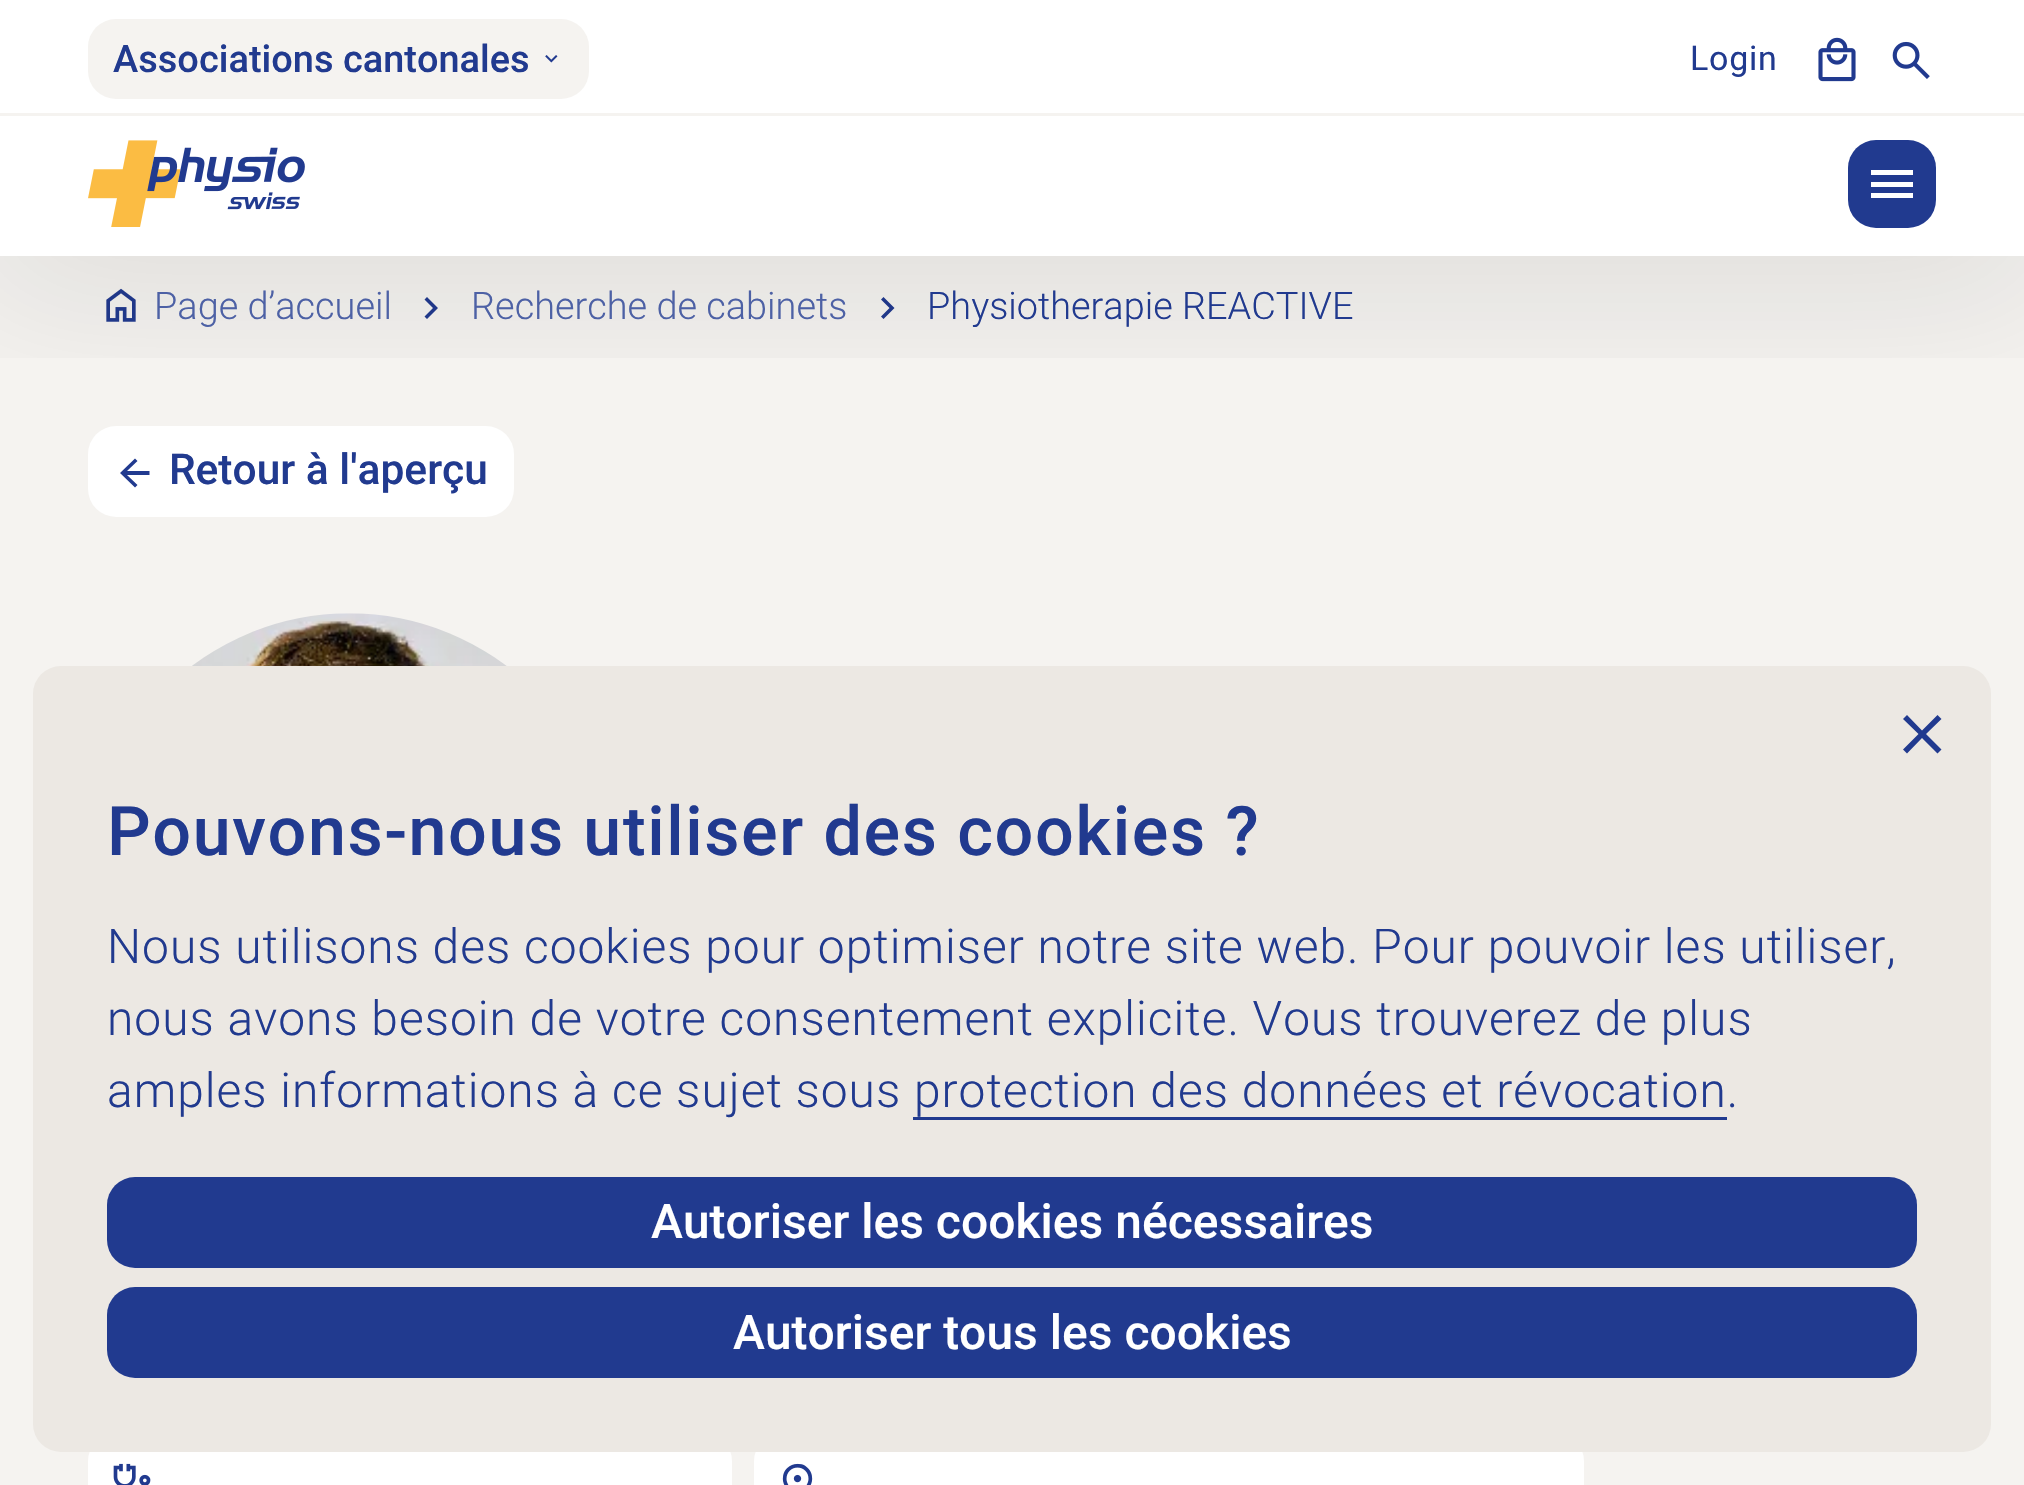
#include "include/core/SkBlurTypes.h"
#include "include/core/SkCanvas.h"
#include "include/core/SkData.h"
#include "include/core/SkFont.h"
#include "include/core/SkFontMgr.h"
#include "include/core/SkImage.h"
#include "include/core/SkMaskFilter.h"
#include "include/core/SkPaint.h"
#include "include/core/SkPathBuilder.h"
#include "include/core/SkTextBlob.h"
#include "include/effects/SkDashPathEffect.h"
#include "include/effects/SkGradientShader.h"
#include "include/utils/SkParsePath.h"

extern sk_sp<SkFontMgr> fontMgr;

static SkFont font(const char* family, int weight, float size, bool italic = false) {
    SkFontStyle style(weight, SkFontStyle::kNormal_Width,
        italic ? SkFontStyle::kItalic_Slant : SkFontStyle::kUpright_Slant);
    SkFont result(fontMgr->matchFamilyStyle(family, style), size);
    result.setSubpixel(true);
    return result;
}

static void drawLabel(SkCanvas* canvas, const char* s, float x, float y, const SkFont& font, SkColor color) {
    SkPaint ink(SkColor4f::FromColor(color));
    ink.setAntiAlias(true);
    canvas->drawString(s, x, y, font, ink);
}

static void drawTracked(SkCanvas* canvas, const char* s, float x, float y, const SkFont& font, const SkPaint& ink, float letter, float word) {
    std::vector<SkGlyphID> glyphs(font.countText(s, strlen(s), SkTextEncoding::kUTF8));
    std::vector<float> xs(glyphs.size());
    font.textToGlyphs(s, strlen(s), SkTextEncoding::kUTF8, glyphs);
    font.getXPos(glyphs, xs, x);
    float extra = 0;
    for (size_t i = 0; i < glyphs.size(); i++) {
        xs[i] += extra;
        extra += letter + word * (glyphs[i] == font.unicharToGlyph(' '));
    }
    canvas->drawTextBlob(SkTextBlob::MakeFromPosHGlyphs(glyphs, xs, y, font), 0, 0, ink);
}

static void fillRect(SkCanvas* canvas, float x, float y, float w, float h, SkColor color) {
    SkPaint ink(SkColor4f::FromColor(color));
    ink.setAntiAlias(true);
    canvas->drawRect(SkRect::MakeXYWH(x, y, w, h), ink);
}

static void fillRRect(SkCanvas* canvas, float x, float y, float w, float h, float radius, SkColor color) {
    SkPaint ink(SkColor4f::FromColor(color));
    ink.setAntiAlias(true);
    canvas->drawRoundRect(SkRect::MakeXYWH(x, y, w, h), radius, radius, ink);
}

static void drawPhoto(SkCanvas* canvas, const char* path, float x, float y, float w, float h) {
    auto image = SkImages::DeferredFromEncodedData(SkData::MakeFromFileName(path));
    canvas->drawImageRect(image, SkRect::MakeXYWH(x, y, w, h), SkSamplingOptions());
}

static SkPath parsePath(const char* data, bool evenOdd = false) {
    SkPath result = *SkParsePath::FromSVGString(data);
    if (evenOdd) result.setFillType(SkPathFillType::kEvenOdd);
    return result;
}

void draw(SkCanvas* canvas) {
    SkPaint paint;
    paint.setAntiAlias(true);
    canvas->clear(0xFFFFFFFF);
    drawPhoto(canvas, "assets/img4.png", 88, 140, 217, 87);
    fillRRect(canvas, 1848, 140, 88, 88, 28, 0xFF213A8F);
    paint.setColor(0xFFFFFFFF);
    canvas->drawPath(parsePath("M1871 198V193H1913V198ZM1871 187V182H1913V187ZM1871 175V170H1913V175Z"), paint);
    fillRect(canvas, 0, 256, 2024, 1229, 0xFFF5F3F0);
    drawPhoto(canvas, "assets/img5.png", 106, 288, 30, 34);
    paint.setColor(0xFF213A8F);
    canvas->drawPath(parsePath("M433 308L424.5 299.5L427 297L438 308L427 319L424.5 316.5Z"), paint);
    canvas->drawPath(parsePath("M889.5 308L881 299.5L883.5 297L894.5 308L883.5 319L881 316.5Z"), paint);
    fillRRect(canvas, 88, 426, 426, 91, 28, 0xFFFFFFFF);
    canvas->drawPath(parsePath("M127 475L137.5 485L135 487.5L120 473L135 458.5L137.5 461L127 471H149.5V475Z"), paint);
    canvas->save();
    canvas->clipRect(SkRect::MakeXYWH(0, 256, 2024, 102));
    paint.setColor(0x1A000000);
    paint.setMaskFilter(SkMaskFilter::MakeBlur(kNormal_SkBlurStyle, 82.5f));
    canvas->drawRect(SkRect::MakeXYWH(-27, -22, 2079, 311), paint);
    paint.setMaskFilter(nullptr);
    canvas->restore();
    fillRect(canvas, 0, 113, 2024, 3, 0xFFF5F3F0);
    fillRRect(canvas, 88, 19, 501, 80, 28, 0xFFF5F3F0);
    SkFont font1 = font("Roboto", 500, 37.9f);
    drawLabel(canvas, "Associations cantonales", 113, 72, font1, 0xFF213A8F);
    drawPhoto(canvas, "assets/img1.png", 545, 55, 13, 8);
    SkFont font2 = font("Roboto", 400, 34);
    paint.setColor(0xFF213A8F);
    drawTracked(canvas, "Login", 1690, 70, font2, paint, 0.75f, 0);
    drawPhoto(canvas, "assets/img2.png", 1818, 37, 38, 45);
    drawPhoto(canvas, "assets/img3.png", 1892, 41, 38, 38);
    SkFont font3 = font("Roboto", 300, 37.9f);
    drawLabel(canvas, "Page d’accueil", 154, 319, font3, 0xFF4D61A5);
    drawLabel(canvas, "Recherche de cabinets", 471, 319, font3, 0xFF4D61A5);
    drawLabel(canvas, "Physiotherapie REACTIVE", 927, 319, font3, 0xFF213A8F);
    SkFont font4 = font("Roboto", 500, 42.5f);
    drawLabel(canvas, "Retour à l'aperçu", 169, 484, font4, 0xFF213A8F);
    drawPhoto(canvas, "assets/img6.png", 192, 613, 315, 53);
    fillRRect(canvas, 88, 1433, 644, 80, 28, 0xFFFFFFFF);
    drawPhoto(canvas, "assets/img7.png", 113, 1463, 38, 22);
    fillRRect(canvas, 754, 1433, 830, 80, 28, 0xFFFFFFFF);
    drawPhoto(canvas, "assets/img8.png", 782, 1463, 31, 22);
    fillRRect(canvas, 33, 666, 1958, 786, 28, 0xFFECE8E3);
    canvas->drawPath(parsePath("M1907 753.5L1903 749.5L1918.5 734L1903 719L1907 715L1922 730.5L1937.5 715L1941.5 719L1926 734L1941.5 749.5L1937.5 753.5L1922 738Z"), paint);
    SkFont font5 = font("Roboto", 500, 68.25f);
    drawTracked(canvas, "Pouvons-nous utiliser des cookies ?", 107, 855, font5, paint, 1.6f, 0);
    SkFont font6 = font("Roboto", 300, 47.95f);
    drawTracked(canvas, "Nous utilisons des cookies pour optimiser notre site web. Pour pouvoir les utiliser,", 107, 963, font6, paint, 1, 0);
    drawTracked(canvas, "nous avons besoin de votre consentement explicite. Vous trouverez de plus", 107, 1035, font6, paint, 1, 0);
    drawTracked(canvas, "amples informations à ce sujet sous protection des données et révocation.", 107, 1107, font6, paint, 1, 0);
    fillRect(canvas, 913, 1117, 814, 3, 0xFF213A8F);
    fillRRect(canvas, 107, 1177, 1810, 91, 28, 0xFF213A8F);
    SkFont font7 = font("Roboto", 500, 47.95f);
    drawLabel(canvas, "Autoriser les cookies nécessaires", 651, 1238, font7, 0xFFFFFFFF);
    fillRRect(canvas, 107, 1287, 1810, 91, 28, 0xFF213A8F);
    drawLabel(canvas, "Autoriser tous les cookies", 733, 1349, font7, 0xFFFFFFFF);
}
